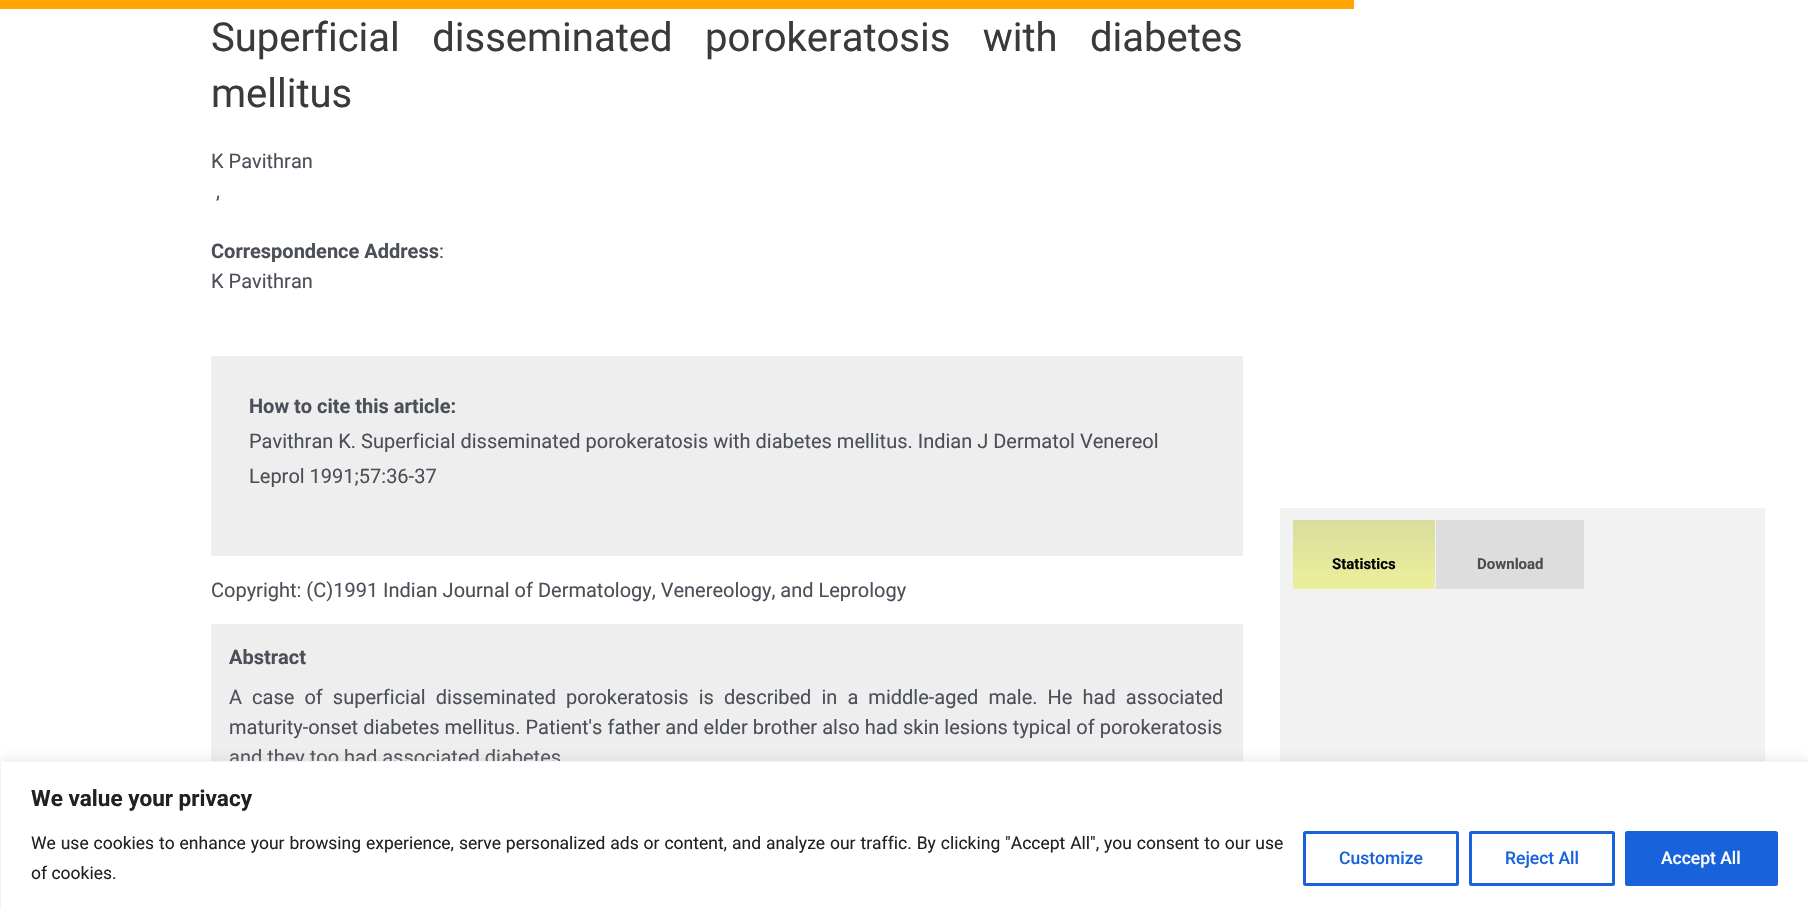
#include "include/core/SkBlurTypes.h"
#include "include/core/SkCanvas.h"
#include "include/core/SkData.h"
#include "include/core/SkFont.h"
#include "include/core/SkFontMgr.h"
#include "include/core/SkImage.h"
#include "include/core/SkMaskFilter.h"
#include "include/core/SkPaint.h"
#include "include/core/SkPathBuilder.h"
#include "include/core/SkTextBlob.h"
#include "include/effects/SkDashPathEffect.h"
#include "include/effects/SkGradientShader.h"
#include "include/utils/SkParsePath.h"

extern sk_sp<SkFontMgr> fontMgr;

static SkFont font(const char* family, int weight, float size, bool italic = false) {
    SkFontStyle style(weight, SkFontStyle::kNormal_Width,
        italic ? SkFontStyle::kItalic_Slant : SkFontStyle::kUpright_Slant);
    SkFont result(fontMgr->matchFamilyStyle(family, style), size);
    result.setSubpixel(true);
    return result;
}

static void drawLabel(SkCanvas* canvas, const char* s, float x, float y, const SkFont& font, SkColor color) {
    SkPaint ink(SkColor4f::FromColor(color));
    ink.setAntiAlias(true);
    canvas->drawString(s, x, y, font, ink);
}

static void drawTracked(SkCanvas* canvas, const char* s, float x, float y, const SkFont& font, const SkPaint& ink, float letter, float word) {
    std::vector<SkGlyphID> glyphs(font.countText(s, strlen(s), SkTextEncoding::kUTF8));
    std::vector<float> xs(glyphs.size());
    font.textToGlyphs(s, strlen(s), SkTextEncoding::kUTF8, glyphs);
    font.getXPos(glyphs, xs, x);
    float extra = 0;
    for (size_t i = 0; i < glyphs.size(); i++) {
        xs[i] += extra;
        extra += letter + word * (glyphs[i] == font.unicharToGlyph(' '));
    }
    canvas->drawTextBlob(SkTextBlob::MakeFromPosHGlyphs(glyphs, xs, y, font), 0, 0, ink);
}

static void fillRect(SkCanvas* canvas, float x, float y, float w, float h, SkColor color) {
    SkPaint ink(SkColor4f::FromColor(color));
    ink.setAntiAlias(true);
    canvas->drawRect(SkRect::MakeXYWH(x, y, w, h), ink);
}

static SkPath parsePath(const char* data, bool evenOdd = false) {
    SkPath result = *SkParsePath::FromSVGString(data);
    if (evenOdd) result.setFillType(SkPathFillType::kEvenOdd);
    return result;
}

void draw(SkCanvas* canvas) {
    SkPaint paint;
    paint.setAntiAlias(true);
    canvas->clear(0xFFFFFFFF);
    fillRect(canvas, 0, 0, 1354, 9, 0xFFFFA400);
    SkFont font1 = font("Roboto", 400, 40);
    paint.setColor(0xFF3A3A3A);
    drawTracked(canvas, "Superficial disseminated porokeratosis with diabetes", 211, 51, font1, paint, 0, 22.5f);
    drawLabel(canvas, "mellitus", 211, 107, font1, 0xFF3A3A3A);
    SkFont font2 = font("Roboto", 400, 20);
    drawLabel(canvas, "K Pavithran", 211, 168, font2, 0xFF4B4F58);
    drawLabel(canvas, ",", 216, 198, font2, 0xFF4B4F58);
    SkFont font3 = font("Roboto", 700, 20);
    drawLabel(canvas, "Correspondence Address", 211, 258, font3, 0xFF4B4F58);
    drawLabel(canvas, ":", 439, 258, font2, 0xFF4B4F58);
    drawLabel(canvas, "K Pavithran", 211, 288, font2, 0xFF4B4F58);
    fillRect(canvas, 211, 356, 1032, 200, 0xFFEEEEEE);
    drawLabel(canvas, "How to cite this article:", 249, 413, font3, 0xFF4B4F58);
    drawLabel(canvas, "Pavithran K. Superficial disseminated porokeratosis with diabetes mellitus. Indian J Dermatol Venereol", 249, 448, font2, 0xFF4B4F58);
    drawLabel(canvas, "Leprol 1991;57:36-37", 249, 483, font2, 0xFF4B4F58);
    drawLabel(canvas, "Copyright: (C)1991 Indian Journal of Dermatology, Venereology, and Leprology", 211, 597, font2, 0xFF4B4F58);
    fillRect(canvas, 211, 624, 1032, 137, 0xFFEEEEEE);
    drawLabel(canvas, "Abstract", 229, 664, font3, 0xFF4B4F58);
    paint.setColor(0xFF4B4F58);
    drawTracked(canvas, "A case of superficial disseminated porokeratosis is described in a middle-aged male. He had associated", 229, 704, font2, paint, 0, 5.1f);
    drawTracked(canvas, "maturity-onset diabetes mellitus. Patient's father and elder brother also had skin lesions typical of porokeratosis", 229, 734, font2, paint, 0, 0.1f);
    drawLabel(canvas, "and they too had associated diabetes", 229, 764, font2, 0xFF4B4F58);
    fillRect(canvas, 1280, 508, 485, 253, 0xFFF2F2F2);
    {
        const SkColor colors[] = {0xFFD9DC9C, 0xFFECF09B};
        const float stops[] = {0, 1};
        const SkPoint ends[] = {{1364, 520}, {1364, 589}};
        paint.setShader(SkGradientShader::MakeLinear(ends, colors, stops, 2, SkTileMode::kClamp));
        paint.setAlpha(255);
    }
    canvas->drawRect(SkRect::MakeXYWH(1293, 520, 142, 5), paint);
    canvas->drawPath(parsePath("M1298 520H1430C1433 520 1435 522 1435 525V589H1293V525C1293 522 1295 520 1298 520Z"), paint);
    SkFont font4 = font("Roboto", 700, 15);
    drawLabel(canvas, "Statistics", 1332, 569, font4, 0xFF000000);
    fillRect(canvas, 1436, 520, 148, 69, 0xFFDDDDDD);
    drawLabel(canvas, "Download", 1477, 569, font4, 0xFF4D4D4D);
    paint.setShader(nullptr);
    paint.setColor(0x4DACABAB);
    paint.setMaskFilter(SkMaskFilter::MakeBlur(kNormal_SkBlurStyle, 6));
    canvas->drawRect(SkRect::MakeXYWH(0, 760, 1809, 149), paint);
    paint.setMaskFilter(nullptr);
    paint.setColor(0xFFFFFFFF);
    canvas->drawRect(SkRect::MakeXYWH(0.5f, 761.5f, 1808, 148), paint);
    paint.setStroke(true);
    paint.setStrokeWidth(1);
    paint.setColor(0xFFF4F4F4);
    canvas->drawRect(SkRect::MakeXYWH(0.5f, 761.5f, 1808, 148), paint);
    SkFont font5 = font("Roboto", 700, 22.5f);
    drawLabel(canvas, "We value your privacy", 31, 806, font5, 0xFF212121);
    SkFont font6 = font("Roboto", 400, 17.5f);
    paint.setStroke(false);
    paint.setColor(0xFF212121);
    drawTracked(canvas, "We use cookies to enhance your browsing experience, serve personalized ads or content, and analyze our traffic. By clicking \"Accept All\", you consent to our use", 31, 849, font6, paint, 0, 0.55f);
    drawLabel(canvas, "of cookies.", 31, 879, font6, 0xFF212121);
    paint.setStroke(true);
    paint.setStrokeWidth(3);
    paint.setColor(0xFF1863DC);
    canvas->drawRoundRect(SkRect::MakeXYWH(1304.5f, 832.5f, 153, 52), 1, 1, paint);
    SkFont font7 = font("Roboto", 500, 17.5f);
    drawLabel(canvas, "Customize", 1339, 864, font7, 0xFF1863DC);
    canvas->drawRoundRect(SkRect::MakeXYWH(1470.5f, 832.5f, 143, 52), 1, 1, paint);
    drawLabel(canvas, "Reject All", 1505, 864, font7, 0xFF1863DC);
    paint.setStroke(false);
    canvas->drawRoundRect(SkRect::MakeXYWH(1626.5f, 832.5f, 150, 52), 1, 1, paint);
    paint.setStroke(true);
    canvas->drawRoundRect(SkRect::MakeXYWH(1626.5f, 832.5f, 150, 52), 1, 1, paint);
    drawLabel(canvas, "Accept All", 1661, 864, font7, 0xFFFFFFFF);
}
